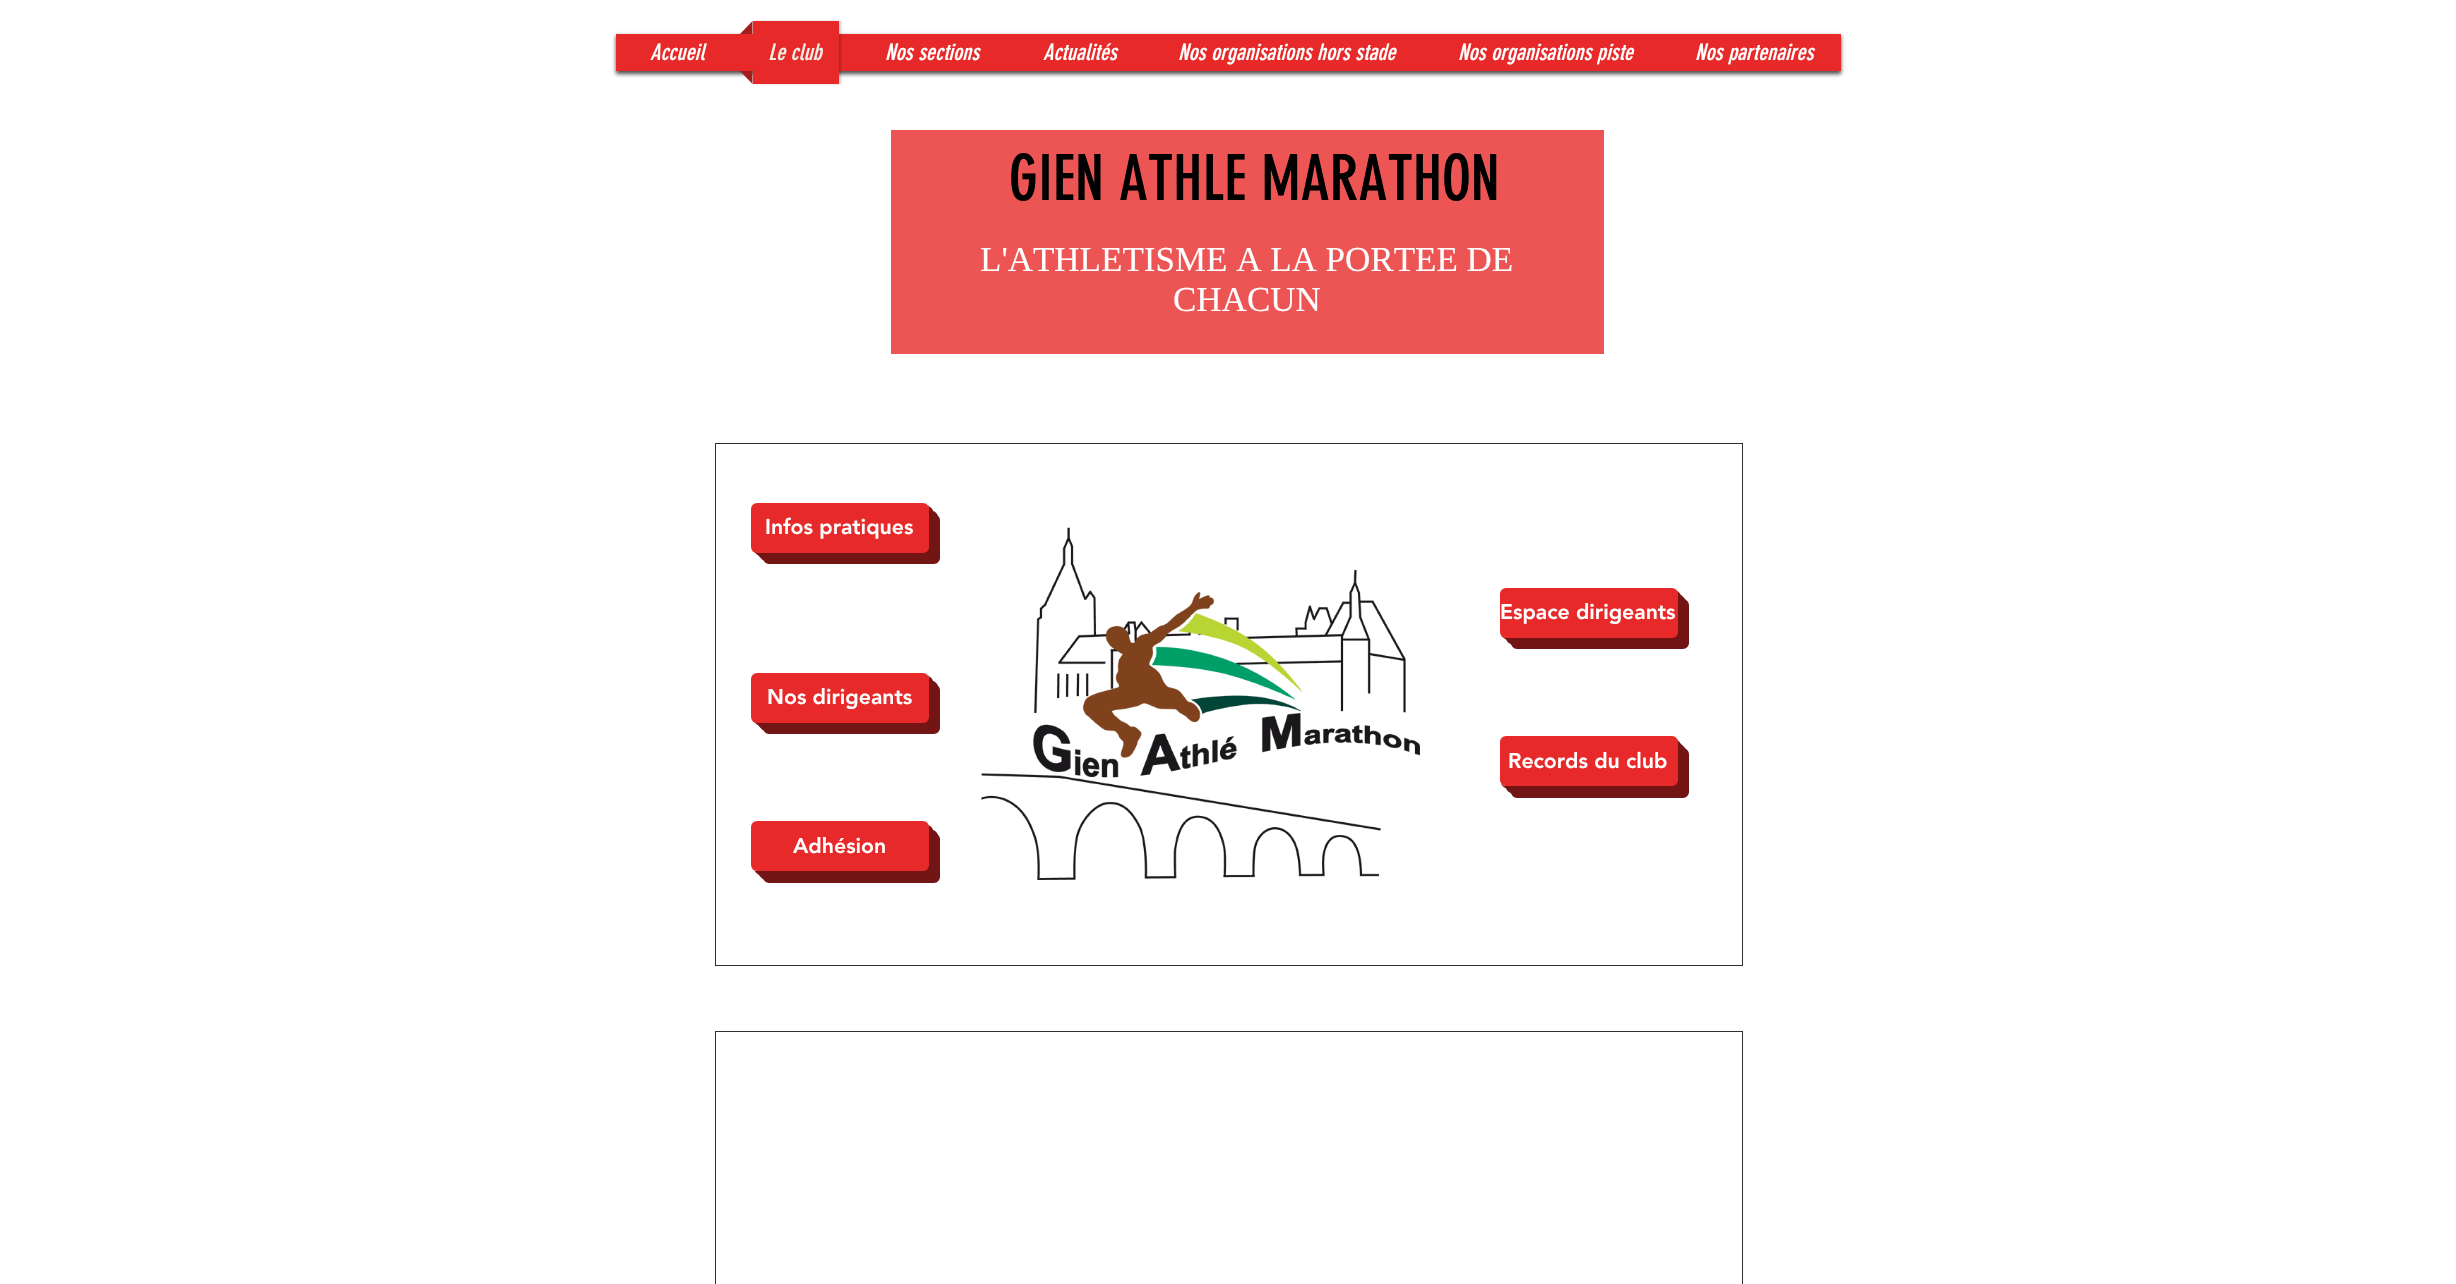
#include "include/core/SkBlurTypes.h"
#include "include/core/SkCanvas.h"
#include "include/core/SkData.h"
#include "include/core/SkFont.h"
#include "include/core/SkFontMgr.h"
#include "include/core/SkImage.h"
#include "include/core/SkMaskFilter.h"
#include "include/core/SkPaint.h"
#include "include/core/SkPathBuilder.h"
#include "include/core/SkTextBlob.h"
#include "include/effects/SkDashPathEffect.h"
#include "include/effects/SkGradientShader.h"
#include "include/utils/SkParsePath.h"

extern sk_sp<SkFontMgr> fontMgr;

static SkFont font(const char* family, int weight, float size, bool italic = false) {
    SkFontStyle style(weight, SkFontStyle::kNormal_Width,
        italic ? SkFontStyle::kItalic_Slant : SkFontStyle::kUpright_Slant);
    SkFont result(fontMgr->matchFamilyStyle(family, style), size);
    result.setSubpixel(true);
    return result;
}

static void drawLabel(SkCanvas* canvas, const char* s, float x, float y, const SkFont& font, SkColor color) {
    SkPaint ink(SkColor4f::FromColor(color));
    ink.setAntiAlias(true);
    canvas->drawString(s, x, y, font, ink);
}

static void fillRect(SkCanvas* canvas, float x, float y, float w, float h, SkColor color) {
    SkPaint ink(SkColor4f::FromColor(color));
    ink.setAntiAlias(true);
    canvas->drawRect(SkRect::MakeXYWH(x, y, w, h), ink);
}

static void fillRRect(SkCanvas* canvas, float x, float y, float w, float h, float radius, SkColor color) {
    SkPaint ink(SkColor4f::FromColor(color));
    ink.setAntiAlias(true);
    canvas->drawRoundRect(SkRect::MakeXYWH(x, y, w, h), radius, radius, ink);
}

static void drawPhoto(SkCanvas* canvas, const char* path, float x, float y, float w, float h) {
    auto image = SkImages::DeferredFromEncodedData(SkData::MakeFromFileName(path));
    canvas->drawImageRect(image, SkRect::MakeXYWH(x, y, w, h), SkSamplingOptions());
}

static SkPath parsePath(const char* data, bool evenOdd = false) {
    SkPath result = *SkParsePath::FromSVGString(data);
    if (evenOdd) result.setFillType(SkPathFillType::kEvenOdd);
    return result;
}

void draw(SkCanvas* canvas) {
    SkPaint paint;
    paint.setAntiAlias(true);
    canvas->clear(0xFFFFFFFF);
    paint.setColor(0xB3000000);
    paint.setMaskFilter(SkMaskFilter::MakeBlur(kNormal_SkBlurStyle, 2));
    canvas->drawRect(SkRect::MakeXYWH(616, 36, 1225, 38), paint);
    paint.setMaskFilter(nullptr);
    fillRect(canvas, 616, 34, 1225, 37, 0xFFE82929);
    SkFont font1 = font("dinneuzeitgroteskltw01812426", 400, 22.5f, true);
    drawLabel(canvas, "Accueil", 650, 60, font1, 0xFFFFFFFF);
    paint.setColor(0x33000000);
    paint.setMaskFilter(SkMaskFilter::MakeBlur(kNormal_SkBlurStyle, 1));
    canvas->drawRect(SkRect::MakeXYWH(755, 21, 86, 63), paint);
    paint.setMaskFilter(nullptr);
    paint.setColor(0xFFA21D1D);
    canvas->drawPath(parsePath("M752.5 34H740L752.5 21ZM740 71H752.5V84Z"), paint);
    fillRect(canvas, 753, 21, 86, 63, 0xFFE82929);
    drawLabel(canvas, "Le club", 768, 60, font1, 0xFFEDEDE4);
    drawLabel(canvas, "Nos sections", 885, 60, font1, 0xFFFFFFFF);
    drawLabel(canvas, "Actualités", 1043, 60, font1, 0xFFFFFFFF);
    drawLabel(canvas, "Nos organisations hors stade", 1178, 60, font1, 0xFFFFFFFF);
    drawLabel(canvas, "Nos organisations piste", 1458, 60, font1, 0xFFFFFFFF);
    drawLabel(canvas, "Nos partenaires", 1695, 60, font1, 0xFFFFFFFF);
    fillRect(canvas, 891, 130, 713, 224, 0xFFED5454);
    SkFont font2 = font("dinneuzeitgroteskltw01812426", 400, 62.5f);
    drawLabel(canvas, "GIEN ATHLE MARATHON", 1009, 200, font2, 0xFF000000);
    SkFont font3 = font("Liberation Serif", 400, 35);
    drawLabel(canvas, "L'ATHLETISME A LA PORTEE DE", 980, 271, font3, 0xFFFFFFFF);
    drawLabel(canvas, "CHACUN", 1173, 311, font3, 0xFFFFFFFF);
    paint.setStroke(true);
    paint.setStrokeWidth(1);
    paint.setColor(0xFF2F2E2E);
    canvas->drawRect(SkRect::MakeXYWH(715.5f, 443.5f, 1027, 522), paint);
    paint.setStroke(false);
    paint.setColor(0xFF741515);
    canvas->drawPath(parsePath("M763 552V558C763 561 766 564 769 564H934C937 564 940 561 940 558V520C940 517 937 514 934 514H929V546C929 550 926 552 922 552Z"), paint);
    canvas->drawPath(parsePath("M760 552V555C760 558 763 561 766 561H932C935 561 938 558 938 555V517C938 514 935 511 932 511H929V546C929 550 926 552 922 552Z"), paint);
    canvas->drawPath(parsePath("M758 552V553C758 556 761 559 764 559H929C932 559 935 556 935 553V515C935 512 932 509 929 509V546C929 550 926 552 922 552Z"), paint);
    canvas->drawPath(parsePath("M755 552C756 554 758 556 761 556H927C930 556 933 553 933 550V512C933 509 931 507 928 506L929 509V546C929 550 926 552 922 552H758Z"), paint);
    canvas->drawPath(parsePath("M754 552C755 553 757 554 759 554H924C927 554 930 551 930 548V510C930 508 929 506 928 505C928 506 929 507 929 509V546C929 550 926 552 922 552H758Z"), paint);
    fillRRect(canvas, 751, 503, 178, 50, 6, 0xFFE82929);
    SkFont font4 = font("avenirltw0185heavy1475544", 900, 21.25f);
    drawLabel(canvas, "Infos pratiques", 765, 534, font4, 0xFFFFFFFF);
    drawPhoto(canvas, "assets/img1.png", 981, 527, 439, 353);
    canvas->drawPath(parsePath("M1511 638V643C1511 646 1514 649 1517 649H1683C1686 649 1689 646 1689 643V605C1689 602 1686 599 1683 599H1678V631C1678 635 1675 638 1671 638Z"), paint);
    canvas->drawPath(parsePath("M1509 638V640C1509 643 1512 646 1515 646H1680C1683 646 1686 643 1686 640V602C1686 599 1683 596 1680 596H1678V631C1678 635 1675 638 1671 638Z"), paint);
    canvas->drawPath(parsePath("M1506 637V638C1506 641 1509 644 1512 644H1678C1681 644 1684 641 1684 638V600C1684 597 1681 594 1678 594V619C1678 624 1680 637 1671 638Z"), paint);
    canvas->drawPath(parsePath("M1504 637C1505 639 1507 641 1510 641H1675C1678 641 1681 638 1681 635V597C1681 594 1679 592 1677 591C1678 594 1678 598 1678 600L1677 633C1675 642 1652 638 1644 638Z"), paint);
    canvas->drawPath(parsePath("M1501 635C1502 637 1504 639 1507 639H1673C1676 639 1679 636 1679 633V595C1679 593 1678 591 1676 590C1677 591 1678 592 1678 594V631C1678 635 1675 638 1671 638H1506C1504 638 1503 637 1501 635Z"), paint);
    fillRRect(canvas, 1500, 588, 178, 50, 6, 0xFFE82929);
    drawLabel(canvas, "Espace dirigeants", 1500, 619, font4, 0xFFFFFFFF);
    canvas->drawPath(parsePath("M763 722V728C763 731 766 734 769 734H934C937 734 940 731 940 728V690C940 687 937 684 934 684H929V716C929 720 926 722 922 722Z"), paint);
    canvas->drawPath(parsePath("M760 722V725C760 728 763 731 766 731H932C935 731 938 728 938 725V687C938 684 935 681 932 681H929V716C929 720 926 722 922 722Z"), paint);
    canvas->drawPath(parsePath("M758 722V723C758 726 761 729 764 729H929C932 729 935 726 935 723V685C935 682 932 679 929 679V716C929 720 926 722 922 722Z"), paint);
    canvas->drawPath(parsePath("M755 722C756 724 758 726 761 726H927C930 726 933 723 933 720V682C933 679 931 677 928 676L929 679V716C929 720 926 722 922 722H758Z"), paint);
    canvas->drawPath(parsePath("M754 722C755 723 757 724 759 724H924C927 724 930 721 930 718V680C930 678 929 676 928 675C928 676 929 677 929 679V716C929 720 926 722 922 722H758Z"), paint);
    fillRRect(canvas, 751, 673, 178, 50, 6, 0xFFE82929);
    drawLabel(canvas, "Nos dirigeants", 767, 704, font4, 0xFFFFFFFF);
    canvas->drawPath(parsePath("M1511 786V792C1511 795 1514 798 1517 798H1683C1686 798 1689 795 1689 792V754C1689 751 1686 748 1683 748H1678V780C1678 783 1675 786 1671 786Z"), paint);
    canvas->drawPath(parsePath("M1509 786V789C1509 792 1512 795 1515 795H1680C1683 795 1686 792 1686 789V751C1686 748 1683 745 1680 745H1678V780C1678 783 1675 786 1671 786Z"), paint);
    canvas->drawPath(parsePath("M1506 786V787C1506 790 1509 793 1512 793H1678C1681 793 1684 790 1684 787V749C1684 746 1681 743 1678 743V768C1678 773 1680 786 1671 786Z"), paint);
    canvas->drawPath(parsePath("M1504 786C1505 788 1507 790 1510 790H1675C1678 790 1681 787 1681 784V746C1681 743 1679 741 1677 740V781C1675 791 1652 786 1644 786Z"), paint);
    canvas->drawPath(parsePath("M1501 784C1502 786 1504 788 1507 788H1673C1676 788 1679 785 1679 782V744C1679 742 1678 740 1677 739L1678 742V780C1678 783 1675 786 1671 786H1506C1504 786 1502 785 1501 784Z"), paint);
    fillRRect(canvas, 1500, 736, 178, 50, 6, 0xFFE82929);
    drawLabel(canvas, "Records du club", 1508, 768, font4, 0xFFFFFFFF);
    canvas->drawPath(parsePath("M763 871V877C763 880 766 883 769 883H934C937 883 940 880 940 877V839C940 836 937 833 934 833H929V865C929 868 926 871 922 871Z"), paint);
    canvas->drawPath(parsePath("M760 871V874C760 877 763 880 766 880H932C935 880 938 877 938 874V836C938 833 935 830 932 830H929V865C929 868 926 871 922 871Z"), paint);
    canvas->drawPath(parsePath("M758 871V872C758 875 761 878 764 878H929C932 878 935 875 935 872V834C935 831 932 828 929 828V865C929 868 926 871 922 871Z"), paint);
    canvas->drawPath(parsePath("M755 871C756 873 758 875 761 875H927C930 875 933 872 933 869V831C933 828 931 826 928 825L929 828V865C929 868 926 871 922 871H758Z"), paint);
    canvas->drawPath(parsePath("M754 870C755 872 757 873 759 873H924C927 873 930 870 930 867V829C930 827 929 826 928 825L929 828V865C929 868 926 871 922 871H758C756 871 755 871 754 870Z"), paint);
    fillRRect(canvas, 751, 821, 178, 50, 6, 0xFFE82929);
    drawLabel(canvas, "Adhésion", 793, 853, font4, 0xFFFFFFFF);
    paint.setStroke(true);
    paint.setColor(0xFF2F2E2E);
    canvas->drawRect(SkRect::MakeXYWH(715.5f, 1031.5f, 1027, 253), paint);
}
